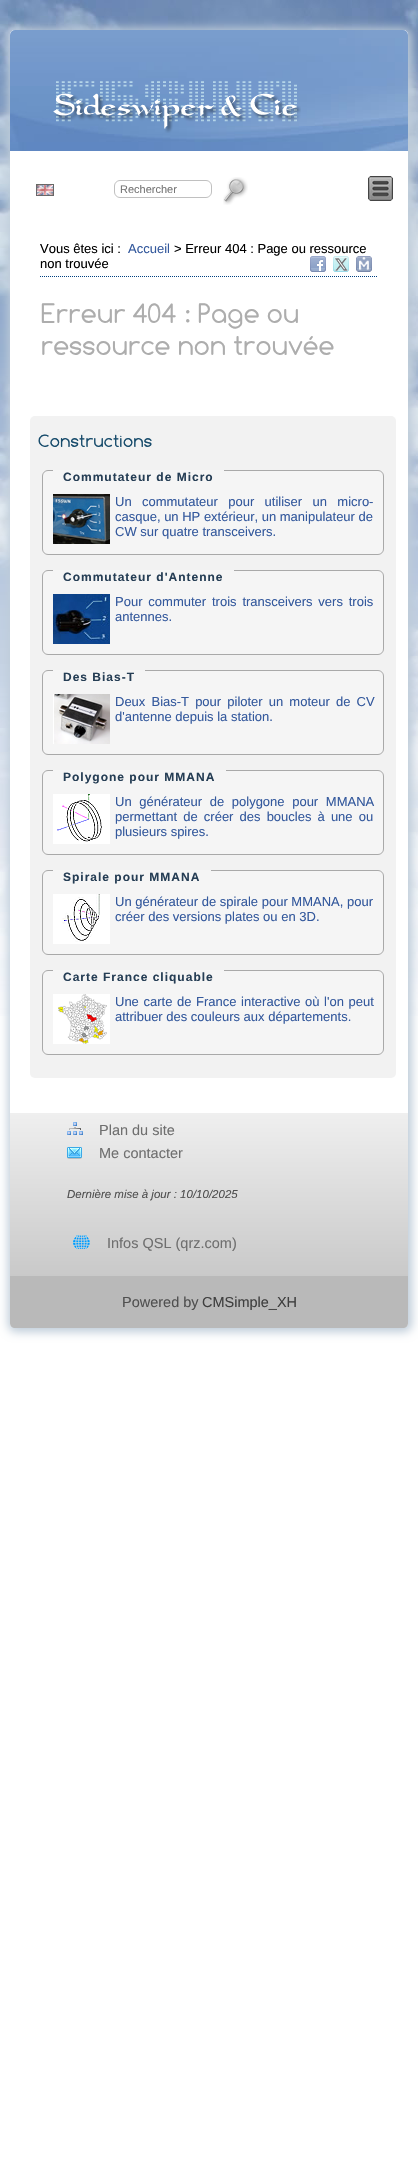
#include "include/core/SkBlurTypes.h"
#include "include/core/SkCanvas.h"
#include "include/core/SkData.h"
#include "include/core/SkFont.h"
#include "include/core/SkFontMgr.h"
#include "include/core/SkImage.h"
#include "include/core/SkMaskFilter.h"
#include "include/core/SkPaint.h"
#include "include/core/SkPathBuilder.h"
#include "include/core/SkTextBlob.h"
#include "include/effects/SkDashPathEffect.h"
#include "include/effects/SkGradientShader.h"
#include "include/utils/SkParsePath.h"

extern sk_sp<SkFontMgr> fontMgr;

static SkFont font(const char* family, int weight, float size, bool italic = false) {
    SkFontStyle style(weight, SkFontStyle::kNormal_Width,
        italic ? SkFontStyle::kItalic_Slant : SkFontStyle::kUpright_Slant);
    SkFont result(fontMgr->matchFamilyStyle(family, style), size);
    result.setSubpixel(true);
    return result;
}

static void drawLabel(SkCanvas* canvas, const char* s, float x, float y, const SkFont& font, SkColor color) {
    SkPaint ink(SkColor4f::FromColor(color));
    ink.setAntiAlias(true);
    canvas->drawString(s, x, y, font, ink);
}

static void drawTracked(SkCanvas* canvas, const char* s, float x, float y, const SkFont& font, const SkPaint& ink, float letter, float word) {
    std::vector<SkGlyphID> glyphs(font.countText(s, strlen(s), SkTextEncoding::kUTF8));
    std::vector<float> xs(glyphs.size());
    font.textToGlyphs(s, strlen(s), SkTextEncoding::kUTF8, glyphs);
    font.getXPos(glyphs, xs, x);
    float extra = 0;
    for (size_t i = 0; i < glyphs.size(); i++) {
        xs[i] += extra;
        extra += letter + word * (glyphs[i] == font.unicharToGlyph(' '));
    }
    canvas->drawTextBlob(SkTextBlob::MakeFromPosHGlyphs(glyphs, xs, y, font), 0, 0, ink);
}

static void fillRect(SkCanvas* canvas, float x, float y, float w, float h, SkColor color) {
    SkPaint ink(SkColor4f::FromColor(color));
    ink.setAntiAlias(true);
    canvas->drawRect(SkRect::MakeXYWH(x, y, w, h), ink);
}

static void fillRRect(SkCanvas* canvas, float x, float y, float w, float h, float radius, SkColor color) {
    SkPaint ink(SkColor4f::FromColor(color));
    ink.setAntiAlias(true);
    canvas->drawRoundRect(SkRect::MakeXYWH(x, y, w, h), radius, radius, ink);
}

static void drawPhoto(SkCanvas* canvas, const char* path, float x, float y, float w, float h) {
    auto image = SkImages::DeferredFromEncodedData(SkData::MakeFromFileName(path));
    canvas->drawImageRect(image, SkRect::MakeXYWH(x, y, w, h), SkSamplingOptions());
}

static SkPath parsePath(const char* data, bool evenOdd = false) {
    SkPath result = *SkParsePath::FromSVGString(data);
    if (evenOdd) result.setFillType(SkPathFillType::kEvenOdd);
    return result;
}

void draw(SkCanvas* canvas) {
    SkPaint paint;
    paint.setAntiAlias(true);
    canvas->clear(0xFFFFFFFF);
    drawPhoto(canvas, "assets/img1.png", 0, 0, 418, 1016);
    paint.setColor(0xFFBECCD9);
    paint.setMaskFilter(SkMaskFilter::MakeBlur(kNormal_SkBlurStyle, 5));
    canvas->drawRoundRect(SkRect::MakeXYWH(8, 28, 404, 1304), 8, 8, paint);
    paint.setMaskFilter(nullptr);
    fillRRect(canvas, 10, 30, 398, 1298, 5, 0xFFFFFFFF);
    paint.setColor(0xFFFFFFFF);
    canvas->drawPath(parsePath("M15 30H403C406 30 408 32 408 35V162H10V35C10 32 12 30 15 30Z"), paint);
    drawPhoto(canvas, "assets/img2.png", 10, 30, 398, 121);
    drawPhoto(canvas, "assets/img3.png", 53, 81, 248, 52);
    drawPhoto(canvas, "assets/img4.png", 36, 184, 18, 12);
    paint.setStroke(true);
    paint.setStrokeWidth(1);
    paint.setColor(0xFFC0C0C0);
    canvas->drawRoundRect(SkRect::MakeXYWH(114.5f, 180.5f, 97, 17), 5.5f, 5.5f, paint);
    SkFont font1 = font("Liberation Sans", 400, 11);
    drawLabel(canvas, "Rechercher", 120, 193, font1, 0xFF757575);
    drawPhoto(canvas, "assets/img5.png", 223, 177, 25, 28);
    drawPhoto(canvas, "assets/img6.png", 368, 176, 25, 25);
    paint.setColor(0xFF004080);
    paint.setPathEffect(SkDashPathEffect::Make({{1, 1}}, 0));
    canvas->drawPath(parsePath("M40 276.5H378"), paint);
    paint.setPathEffect(nullptr);
    SkFont font2 = font("Liberation Sans", 400, 13);
    drawLabel(canvas, "Vous êtes ici :", 40, 253, font2, 0xFF000000);
    drawLabel(canvas, "Accueil", 128, 253, font2, 0xFF34599D);
    drawLabel(canvas, "> Erreur 404 : Page ou ressource", 174, 253, font2, 0xFF000000);
    drawLabel(canvas, "non trouvée", 40, 268, font2, 0xFF000000);
    drawPhoto(canvas, "assets/img7.png", 310, 256, 16, 16);
    drawPhoto(canvas, "assets/img8.png", 333, 256, 16, 16);
    drawPhoto(canvas, "assets/img9.png", 356, 256, 16, 16);
    SkFont font3 = font("Comfortaa", 400, 28);
    drawLabel(canvas, "Erreur 404 : Page ou", 41, 323, font3, 0xFFADADAD);
    drawLabel(canvas, "ressource non trouvée", 41, 355, font3, 0xFFADADAD);
    fillRRect(canvas, 30, 416, 366, 662, 5, 0xFFF2F2F2);
    SkFont font4 = font("Comfortaa", 400, 18);
    drawLabel(canvas, "Constructions", 38, 447, font4, 0xFF174B6B);
    paint.setStroke(false);
    paint.setColor(0xFFF5F5F5);
    canvas->drawRoundRect(SkRect::MakeXYWH(42.5f, 470.5f, 341, 84), 5.5f, 5.5f, paint);
    paint.setStroke(true);
    paint.setColor(0xFFA9A9A9);
    canvas->drawRoundRect(SkRect::MakeXYWH(42.5f, 470.5f, 341, 84), 5.5f, 5.5f, paint);
    fillRect(canvas, 53, 470, 171, 1, 0xFFF5F5F5);
    SkFont font5 = font("Liberation Sans", 700, 12);
    paint.setStroke(false);
    paint.setColor(0xFF263E55);
    drawTracked(canvas, "Commutateur de Micro", 63, 481, font5, paint, 1, 0);
    drawPhoto(canvas, "assets/img10.png", 53, 494, 57, 50);
    paint.setColor(0xFF34599D);
    drawTracked(canvas, "Un commutateur pour utiliser un micro-", 115, 506, font2, paint, 0, 6.75f);
    drawLabel(canvas, "casque, un HP extérieur, un manipulateur de", 115, 521, font2, 0xFF34599D);
    drawLabel(canvas, "CW sur quatre transceivers.", 115, 536, font2, 0xFF34599D);
    paint.setColor(0xFFF5F5F5);
    canvas->drawRoundRect(SkRect::MakeXYWH(42.5f, 570.5f, 341, 84), 5.5f, 5.5f, paint);
    paint.setStroke(true);
    paint.setColor(0xFFA9A9A9);
    canvas->drawRoundRect(SkRect::MakeXYWH(42.5f, 570.5f, 341, 84), 5.5f, 5.5f, paint);
    fillRect(canvas, 53, 570, 181, 1, 0xFFF5F5F5);
    paint.setStroke(false);
    paint.setColor(0xFF263E55);
    drawTracked(canvas, "Commutateur d'Antenne", 63, 581, font5, paint, 1, 0);
    drawPhoto(canvas, "assets/img11.png", 53, 594, 57, 50);
    paint.setColor(0xFF34599D);
    drawTracked(canvas, "Pour commuter trois transceivers vers trois", 115, 606, font2, paint, 0, 2.25f);
    drawLabel(canvas, "antennes.", 115, 621, font2, 0xFF34599D);
    paint.setColor(0xFFF5F5F5);
    canvas->drawRoundRect(SkRect::MakeXYWH(42.5f, 670.5f, 341, 84), 5.5f, 5.5f, paint);
    paint.setStroke(true);
    paint.setColor(0xFFA9A9A9);
    canvas->drawRoundRect(SkRect::MakeXYWH(42.5f, 670.5f, 341, 84), 5.5f, 5.5f, paint);
    fillRect(canvas, 53, 670, 92, 1, 0xFFF5F5F5);
    paint.setStroke(false);
    paint.setColor(0xFF263E55);
    drawTracked(canvas, "Des Bias-T", 63, 681, font5, paint, 1, 0);
    drawPhoto(canvas, "assets/img12.png", 53, 694, 57, 50);
    paint.setColor(0xFF34599D);
    drawTracked(canvas, "Deux Bias-T pour piloter un moteur de CV", 115, 706, font2, paint, 0, 2.5f);
    drawLabel(canvas, "d'antenne depuis la station.", 115, 721, font2, 0xFF34599D);
    paint.setColor(0xFFF5F5F5);
    canvas->drawRoundRect(SkRect::MakeXYWH(42.5f, 770.5f, 341, 84), 5.5f, 5.5f, paint);
    paint.setStroke(true);
    paint.setColor(0xFFA9A9A9);
    canvas->drawRoundRect(SkRect::MakeXYWH(42.5f, 770.5f, 341, 84), 5.5f, 5.5f, paint);
    fillRect(canvas, 53, 770, 173, 1, 0xFFF5F5F5);
    paint.setStroke(false);
    paint.setColor(0xFF263E55);
    drawTracked(canvas, "Polygone pour MMANA", 63, 781, font5, paint, 1, 0);
    drawPhoto(canvas, "assets/img13.png", 53, 794, 57, 50);
    paint.setColor(0xFF34599D);
    drawTracked(canvas, "Un générateur de polygone pour MMANA", 115, 806, font2, paint, 0, 4);
    drawTracked(canvas, "permettant de créer des boucles à une ou", 115, 821, font2, paint, 0, 2.5f);
    drawLabel(canvas, "plusieurs spires.", 115, 836, font2, 0xFF34599D);
    paint.setColor(0xFFF5F5F5);
    canvas->drawRoundRect(SkRect::MakeXYWH(42.5f, 870.5f, 341, 84), 5.5f, 5.5f, paint);
    paint.setStroke(true);
    paint.setColor(0xFFA9A9A9);
    canvas->drawRoundRect(SkRect::MakeXYWH(42.5f, 870.5f, 341, 84), 5.5f, 5.5f, paint);
    fillRect(canvas, 53, 870, 158, 1, 0xFFF5F5F5);
    paint.setStroke(false);
    paint.setColor(0xFF263E55);
    drawTracked(canvas, "Spirale pour MMANA", 63, 881, font5, paint, 1, 0);
    drawPhoto(canvas, "assets/img14.png", 53, 894, 57, 50);
    drawLabel(canvas, "Un générateur de spirale pour MMANA, pour", 115, 906, font2, 0xFF34599D);
    drawLabel(canvas, "créer des versions plates ou en 3D.", 115, 921, font2, 0xFF34599D);
    paint.setColor(0xFFF5F5F5);
    canvas->drawRoundRect(SkRect::MakeXYWH(42.5f, 970.5f, 341, 84), 5.5f, 5.5f, paint);
    paint.setStroke(true);
    paint.setColor(0xFFA9A9A9);
    canvas->drawRoundRect(SkRect::MakeXYWH(42.5f, 970.5f, 341, 84), 5.5f, 5.5f, paint);
    fillRect(canvas, 53, 970, 171, 1, 0xFFF5F5F5);
    paint.setStroke(false);
    paint.setColor(0xFF263E55);
    drawTracked(canvas, "Carte France cliquable", 63, 981, font5, paint, 1, 0);
    drawPhoto(canvas, "assets/img15.png", 53, 994, 57, 50);
    paint.setColor(0xFF34599D);
    drawTracked(canvas, "Une carte de France interactive où l'on peut", 115, 1006, font2, paint, 0, 1);
    drawLabel(canvas, "attribuer des couleurs aux départements.", 115, 1021, font2, 0xFF34599D);
    {
        const SkColor colors[] = {0xFFEFEFEF, 0xFFC9C9C9};
        const float stops[] = {0, 1};
        const SkPoint ends[] = {{209, 1113}, {209, 1276}};
        paint.setShader(SkGradientShader::MakeLinear(ends, colors, stops, 2, SkTileMode::kClamp));
        paint.setAlpha(255);
    }
    canvas->drawRect(SkRect::MakeXYWH(10, 1113, 398, 163), paint);
    drawPhoto(canvas, "assets/img16.png", 67, 1122, 16, 13);
    SkFont font6 = font("Liberation Sans", 400, 14.5f);
    drawLabel(canvas, "Plan du site", 99, 1135, font6, 0xFF6F6F6F);
    drawPhoto(canvas, "assets/img17.png", 67, 1147, 15, 12);
    drawLabel(canvas, "Me contacter", 99, 1158, font6, 0xFF6F6F6F);
    SkFont font7 = font("Liberation Sans", 400, 11.5f, true);
    drawLabel(canvas, "Dernière mise à jour : 10/10/2025", 67, 1198, font7, 0xFF505050);
    drawPhoto(canvas, "assets/img18.png", 73, 1235, 17, 14);
    drawLabel(canvas, "Infos QSL (qrz.com)", 107, 1248, font6, 0xFF6F6F6F);
    paint.setShader(nullptr);
    paint.setColor(0xFFB9B9B9);
    canvas->drawPath(parsePath("M10 1276H408V1323C408 1326 406 1328 403 1328H15C12 1328 10 1326 10 1323Z"), paint);
    drawLabel(canvas, "Powered by", 122, 1307, font6, 0xFF505050);
    drawLabel(canvas, "CMSimple_XH", 202, 1307, font6, 0xFF3F3F3F);
}
